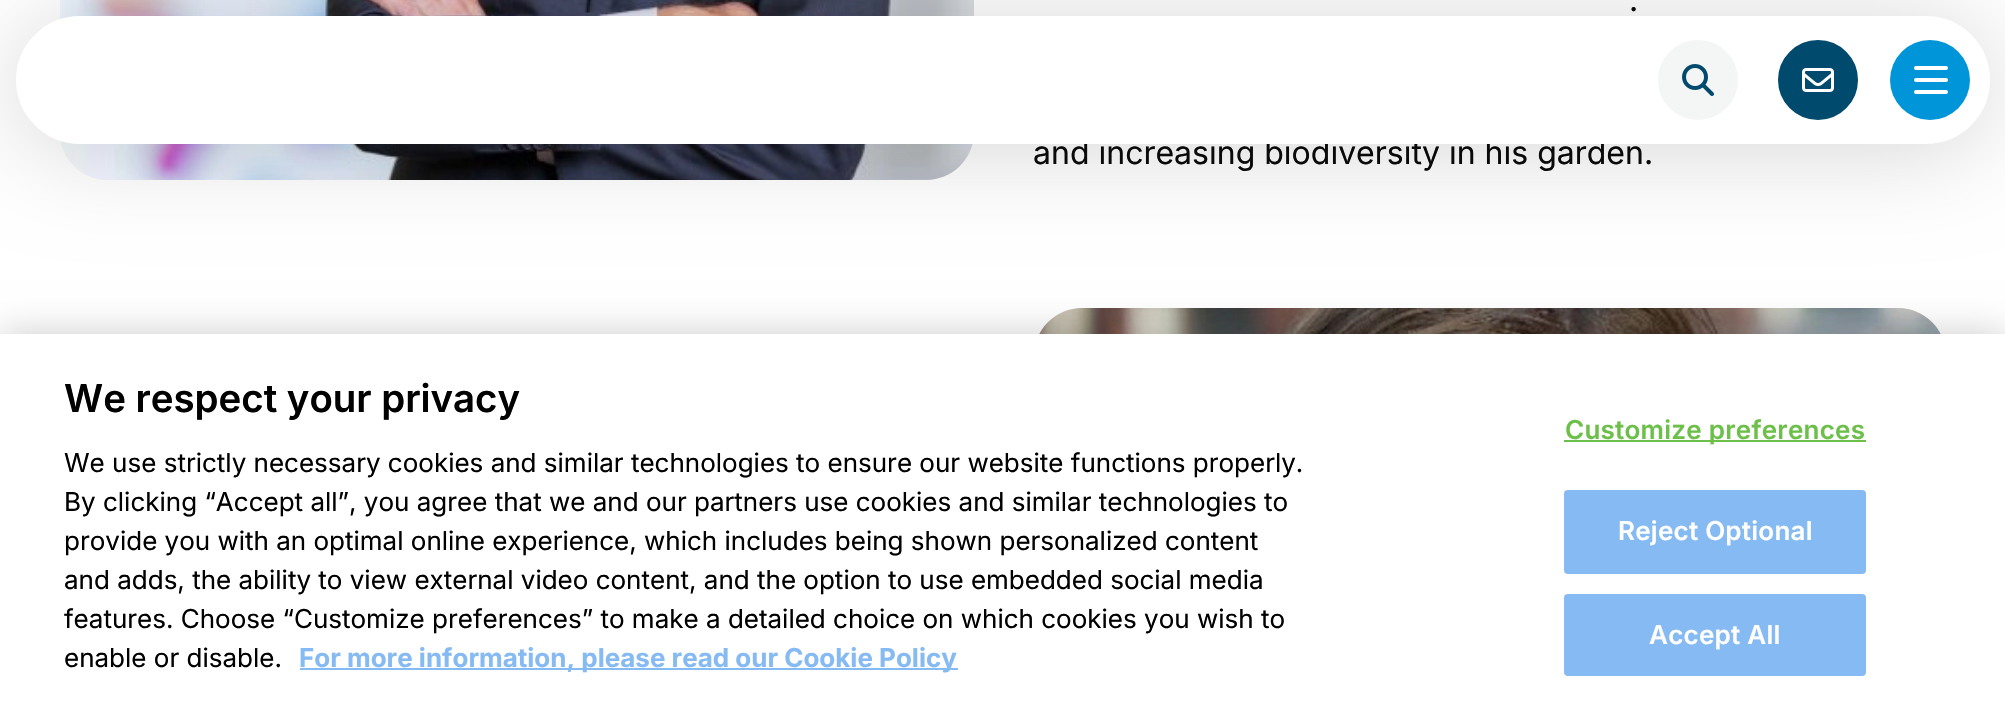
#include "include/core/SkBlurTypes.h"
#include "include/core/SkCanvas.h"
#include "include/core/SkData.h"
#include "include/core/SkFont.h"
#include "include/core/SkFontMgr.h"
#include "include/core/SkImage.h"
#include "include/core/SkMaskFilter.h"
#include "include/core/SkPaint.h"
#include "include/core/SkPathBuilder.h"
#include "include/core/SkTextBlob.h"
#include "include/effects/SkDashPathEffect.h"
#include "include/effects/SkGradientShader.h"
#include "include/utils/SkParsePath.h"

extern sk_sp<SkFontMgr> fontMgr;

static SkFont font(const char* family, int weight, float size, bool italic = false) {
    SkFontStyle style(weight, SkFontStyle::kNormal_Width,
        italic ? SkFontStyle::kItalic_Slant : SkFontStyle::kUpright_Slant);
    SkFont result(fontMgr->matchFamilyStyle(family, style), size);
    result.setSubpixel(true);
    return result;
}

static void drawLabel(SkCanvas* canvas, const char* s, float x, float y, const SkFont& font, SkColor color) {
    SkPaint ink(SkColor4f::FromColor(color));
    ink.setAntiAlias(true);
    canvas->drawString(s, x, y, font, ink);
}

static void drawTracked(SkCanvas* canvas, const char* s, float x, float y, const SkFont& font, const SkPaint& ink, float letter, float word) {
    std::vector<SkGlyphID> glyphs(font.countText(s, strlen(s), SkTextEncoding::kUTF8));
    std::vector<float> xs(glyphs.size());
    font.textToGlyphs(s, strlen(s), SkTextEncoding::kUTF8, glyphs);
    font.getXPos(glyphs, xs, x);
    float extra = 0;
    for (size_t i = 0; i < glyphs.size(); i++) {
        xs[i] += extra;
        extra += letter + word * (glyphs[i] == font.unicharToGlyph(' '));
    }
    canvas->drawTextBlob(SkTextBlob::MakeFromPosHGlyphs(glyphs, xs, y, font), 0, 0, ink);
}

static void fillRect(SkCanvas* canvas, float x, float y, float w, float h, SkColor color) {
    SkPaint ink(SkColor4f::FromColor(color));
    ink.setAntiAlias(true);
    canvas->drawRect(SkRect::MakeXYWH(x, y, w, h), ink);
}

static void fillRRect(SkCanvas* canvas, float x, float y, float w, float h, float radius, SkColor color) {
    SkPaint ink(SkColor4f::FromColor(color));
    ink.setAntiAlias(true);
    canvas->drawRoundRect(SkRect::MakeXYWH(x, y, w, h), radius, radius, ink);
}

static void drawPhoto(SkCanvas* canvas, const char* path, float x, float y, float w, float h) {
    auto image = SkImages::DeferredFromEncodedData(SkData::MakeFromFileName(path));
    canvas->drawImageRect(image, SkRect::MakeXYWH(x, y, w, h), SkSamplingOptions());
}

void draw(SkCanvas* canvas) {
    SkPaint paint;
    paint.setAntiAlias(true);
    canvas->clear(0xFFFFFFFF);
    fillRRect(canvas, 60, -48, 914, 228, 48, 0xFFF0F0F0);
    drawPhoto(canvas, "assets/img3.png", 60, 0, 914, 180);
    paint.setColor(0x29000000);
    paint.setMaskFilter(SkMaskFilter::MakeBlur(kNormal_SkBlurStyle, 48));
    canvas->drawRoundRect(SkRect::MakeXYWH(16, 22, 1974, 128), 64, 64, paint);
    paint.setMaskFilter(nullptr);
    SkFont font1 = font("Inter", 400, 32);
    drawLabel(canvas, "and increasing biodiversity in his garden.", 1033, 164, font1, 0xFF0A0A0A);
    paint.setColor(0xFFFFFFFF);
    canvas->drawRoundRect(SkRect::MakeXYWH(18, 18, 1970, 124), 62, 62, paint);
    paint.setStroke(true);
    paint.setStrokeWidth(4);
    canvas->drawRoundRect(SkRect::MakeXYWH(18, 18, 1970, 124), 62, 62, paint);
    paint.setStroke(false);
    paint.setColor(0xFFF4F5F5);
    canvas->drawCircle(1698, 80, 38, paint);
    paint.setStroke(true);
    canvas->drawCircle(1698, 80, 38, paint);
    drawPhoto(canvas, "assets/img1.png", 1682, 64, 32, 32);
    paint.setStroke(false);
    paint.setColor(0xFF004A6D);
    canvas->drawCircle(1818, 80, 38, paint);
    paint.setStroke(true);
    canvas->drawCircle(1818, 80, 38, paint);
    drawPhoto(canvas, "assets/img2.png", 1802, 68, 32, 24);
    paint.setStroke(false);
    paint.setColor(0xFF0094D9);
    canvas->drawCircle(1930, 80, 40, paint);
    fillRRect(canvas, 1914, 66, 34, 4, 2, 0xFFFFFFFF);
    fillRRect(canvas, 1914, 78, 34, 4, 2, 0xFFFFFFFF);
    fillRRect(canvas, 1914, 90, 34, 4, 2, 0xFFFFFFFF);
    drawLabel(canvas, ".", 1629, 11, font1, 0xFF0A0A0A);
    fillRRect(canvas, 1034, 308, 912, 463, 48, 0xFFF0F0F0);
    drawPhoto(canvas, "assets/img4.png", 1039, 308, 902, 26);
    paint.setColor(0x33000000);
    paint.setMaskFilter(SkMaskFilter::MakeBlur(kNormal_SkBlurStyle, 18));
    canvas->drawRect(SkRect::MakeXYWH(0, 334, 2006, 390), paint);
    paint.setMaskFilter(nullptr);
    fillRect(canvas, 0, 334, 2005, 389, 0xFFFFFFFF);
    SkFont font2 = font("Inter", 600, 38.4f);
    drawLabel(canvas, "We respect your privacy", 64, 412, font2, 0xFF000000);
    SkFont font3 = font("Inter", 400, 26);
    drawLabel(canvas, "We use strictly necessary cookies and similar technologies to ensure our website functions properly.", 64, 472, font3, 0xFF000000);
    drawLabel(canvas, "By clicking “Accept all”, you agree that we and our partners use cookies and similar technologies to", 64, 511, font3, 0xFF000000);
    drawLabel(canvas, "provide you with an optimal online experience, which includes being shown personalized content", 64, 550, font3, 0xFF000000);
    drawLabel(canvas, "and adds, the ability to view external video content, and the option to use embedded social media", 64, 589, font3, 0xFF000000);
    drawLabel(canvas, "features. Choose “Customize preferences” to make a detailed choice on which cookies you wish to", 64, 628, font3, 0xFF000000);
    drawLabel(canvas, "enable or disable.", 64, 667, font3, 0xFF000000);
    fillRect(canvas, 300, 668, 658, 2, 0xFF86BAF3);
    SkFont font4 = font("Inter", 700, 26);
    drawLabel(canvas, "For more information, please read our Cookie Policy", 299, 667, font4, 0xFF86BAF3);
    fillRect(canvas, 1564, 440, 302, 2, 0xFF6CC04A);
    SkFont font5 = font("Inter", 600, 26);
    paint.setColor(0xFF6CC04A);
    drawTracked(canvas, "Customize preferences", 1565, 439, font5, paint, 0.25f, 0);
    paint.setColor(0xFF86BAF3);
    canvas->drawRoundRect(SkRect::MakeXYWH(1565, 491, 300, 82), 3, 3, paint);
    paint.setStroke(true);
    paint.setStrokeWidth(2);
    canvas->drawRoundRect(SkRect::MakeXYWH(1565, 491, 300, 82), 3, 3, paint);
    paint.setStroke(false);
    paint.setColor(0xFFFFFFFF);
    drawTracked(canvas, "Reject Optional", 1618, 540, font5, paint, 0.25f, 0);
    paint.setColor(0xFF86BAF3);
    canvas->drawRoundRect(SkRect::MakeXYWH(1565, 595, 300, 80), 3, 3, paint);
    paint.setStroke(true);
    canvas->drawRoundRect(SkRect::MakeXYWH(1565, 595, 300, 80), 3, 3, paint);
    paint.setStroke(false);
    paint.setColor(0xFFFFFFFF);
    drawTracked(canvas, "Accept All", 1649, 644, font5, paint, 0.25f, 0);
}
